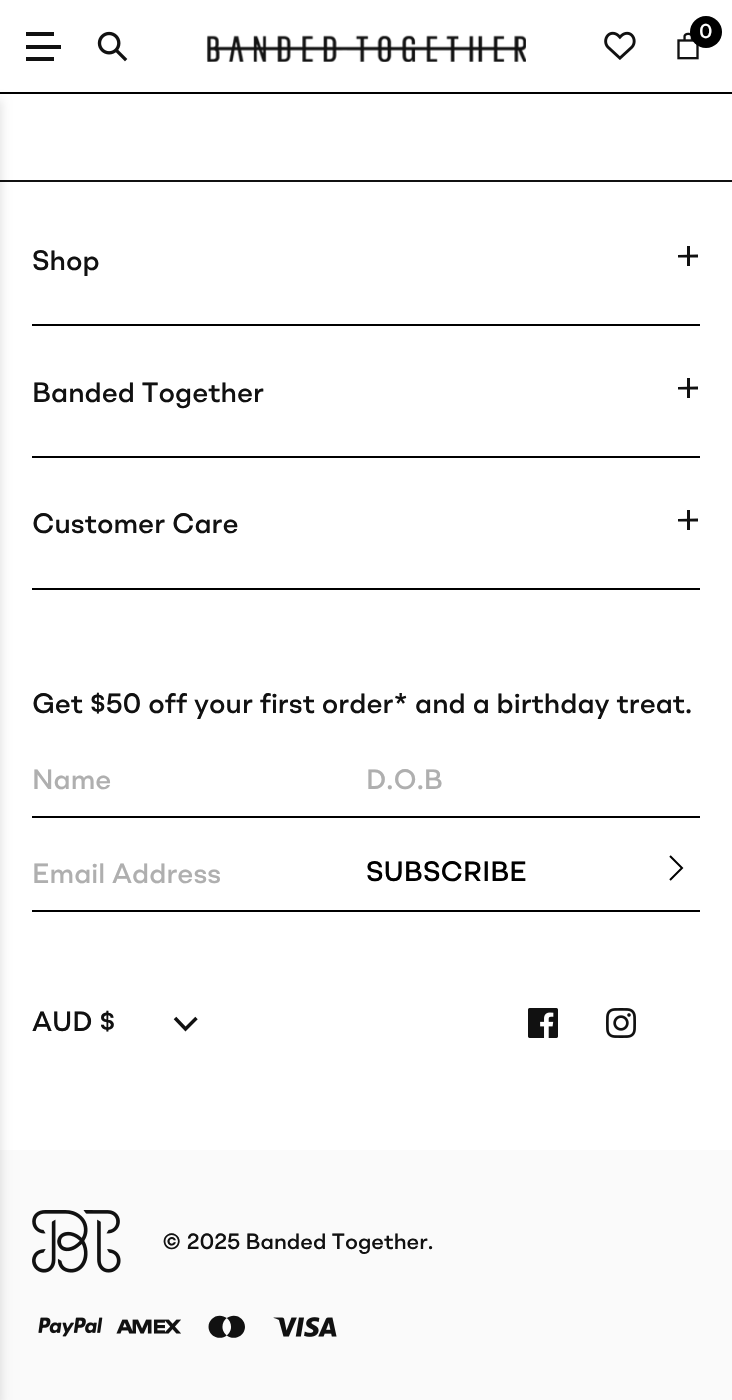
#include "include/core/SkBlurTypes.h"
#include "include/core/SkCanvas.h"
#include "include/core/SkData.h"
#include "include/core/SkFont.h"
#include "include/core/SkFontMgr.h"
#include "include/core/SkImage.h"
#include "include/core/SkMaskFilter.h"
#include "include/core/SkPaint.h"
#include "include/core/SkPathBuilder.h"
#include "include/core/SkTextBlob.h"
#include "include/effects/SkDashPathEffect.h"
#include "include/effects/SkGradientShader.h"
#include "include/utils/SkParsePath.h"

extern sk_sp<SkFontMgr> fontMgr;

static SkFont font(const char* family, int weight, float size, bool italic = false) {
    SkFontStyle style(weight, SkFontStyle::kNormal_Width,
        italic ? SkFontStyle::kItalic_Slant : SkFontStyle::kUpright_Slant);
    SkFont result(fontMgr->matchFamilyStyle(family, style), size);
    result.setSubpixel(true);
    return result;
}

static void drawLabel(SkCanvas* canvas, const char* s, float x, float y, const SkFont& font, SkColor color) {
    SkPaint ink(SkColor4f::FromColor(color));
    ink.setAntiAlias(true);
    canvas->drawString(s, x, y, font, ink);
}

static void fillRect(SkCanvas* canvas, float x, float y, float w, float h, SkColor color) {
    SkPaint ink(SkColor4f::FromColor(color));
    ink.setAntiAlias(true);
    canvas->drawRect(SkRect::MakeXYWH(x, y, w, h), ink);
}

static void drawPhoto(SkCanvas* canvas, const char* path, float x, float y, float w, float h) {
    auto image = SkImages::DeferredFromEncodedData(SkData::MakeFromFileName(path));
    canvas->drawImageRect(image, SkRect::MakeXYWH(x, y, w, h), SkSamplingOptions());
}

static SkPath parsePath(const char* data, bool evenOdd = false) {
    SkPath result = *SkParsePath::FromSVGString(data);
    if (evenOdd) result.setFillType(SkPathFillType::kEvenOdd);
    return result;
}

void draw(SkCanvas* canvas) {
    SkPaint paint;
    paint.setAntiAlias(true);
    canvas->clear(0xFFFFFFFF);
    fillRect(canvas, 0, 92, 732, 2, 0xFF000000);
    fillRect(canvas, 26, 57, 28, 4, 0xFF111111);
    fillRect(canvas, 26, 32, 28, 4, 0xFF111111);
    fillRect(canvas, 26, 45, 35, 4, 0xFF111111);
    drawPhoto(canvas, "assets/img1.png", 97, 31, 31, 31);
    drawPhoto(canvas, "assets/img2.png", 206, 35, 320, 27);
    drawPhoto(canvas, "assets/img3.png", 604, 31, 32, 29);
    drawPhoto(canvas, "assets/img4.png", 677, 32, 22, 28);
    paint.setColor(0xFF000000);
    canvas->drawCircle(706, 32, 16, paint);
    SkFont font1 = font("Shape", 500, 20);
    drawLabel(canvas, "0", 699, 38, font1, 0xFFFFFFFF);
    fillRect(canvas, 0, 180, 732, 2, 0xFF111111);
    fillRect(canvas, 0, 1150, 732, 250, 0xFFFAFAFA);
    paint.setColor(0x1A000000);
    paint.setMaskFilter(SkMaskFilter::MakeBlur(kNormal_SkBlurStyle, 5));
    canvas->drawRect(SkRect::MakeXYWH(-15, 100, 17, 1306), paint);
    paint.setMaskFilter(nullptr);
    fillRect(canvas, 32, 324, 668, 2, 0xFF000000);
    SkFont font2 = font("Shape", 500, 28);
    drawLabel(canvas, "Shop", 32, 270, font2, 0xFF111111);
    fillRect(canvas, 687, 246, 3, 20, 0xFF111111);
    paint.setColor(0xFF111111);
    canvas->drawPath(parsePath("M698 257.5H678V255L698 254.5Z", true), paint);
    fillRect(canvas, 32, 456, 668, 2, 0xFF000000);
    drawLabel(canvas, "Banded Together", 32, 402, font2, 0xFF111111);
    fillRect(canvas, 687, 378, 3, 20, 0xFF111111);
    canvas->drawPath(parsePath("M698 389.5H678V387L698 386.5Z", true), paint);
    fillRect(canvas, 32, 588, 668, 2, 0xFF000000);
    drawLabel(canvas, "Customer Care", 32, 533, font2, 0xFF111111);
    fillRect(canvas, 687, 510, 3, 20, 0xFF111111);
    canvas->drawPath(parsePath("M698 521.5H678V519L698 518.5Z", true), paint);
    drawLabel(canvas, "Get $50 off your first order* and a birthday treat.", 32, 713, font2, 0xFF111111);
    fillRect(canvas, 32, 816, 668, 2, 0xFF000000);
    drawLabel(canvas, "Name", 32, 789, font2, 0xFFAFAFAF);
    drawLabel(canvas, "D.O.B", 366, 789, font2, 0xFFAFAFAF);
    fillRect(canvas, 32, 910, 668, 2, 0xFF000000);
    drawLabel(canvas, "Email Address", 32, 883, font2, 0xFFAFAFAF);
    drawLabel(canvas, "SUBSCRIBE", 366, 881, font2, 0xFF000000);
    drawPhoto(canvas, "assets/img5.png", 669, 855, 15, 26);
    drawLabel(canvas, "AUD $", 32, 1031, font2, 0xFF111111);
    paint.setStroke(true);
    paint.setStrokeWidth(3.5f);
    canvas->drawPath(parsePath("M175 1018L185.5 1029L196.5 1018"), paint);
    drawPhoto(canvas, "assets/img6.png", 528, 1008, 30, 30);
    drawPhoto(canvas, "assets/img7.png", 606, 1008, 30, 30);
    drawPhoto(canvas, "assets/img8.png", 32, 1210, 89, 63);
    SkFont font3 = font("Shape", 500, 22);
    drawLabel(canvas, "© 2025 Banded Together.", 162, 1249, font3, 0xFF111111);
    drawPhoto(canvas, "assets/img9.png", 38, 1317, 65, 20);
    drawPhoto(canvas, "assets/img10.png", 116, 1319, 65, 15);
    drawPhoto(canvas, "assets/img11.png", 208, 1315, 37, 23);
    drawPhoto(canvas, "assets/img12.png", 273, 1317, 64, 20);
}
